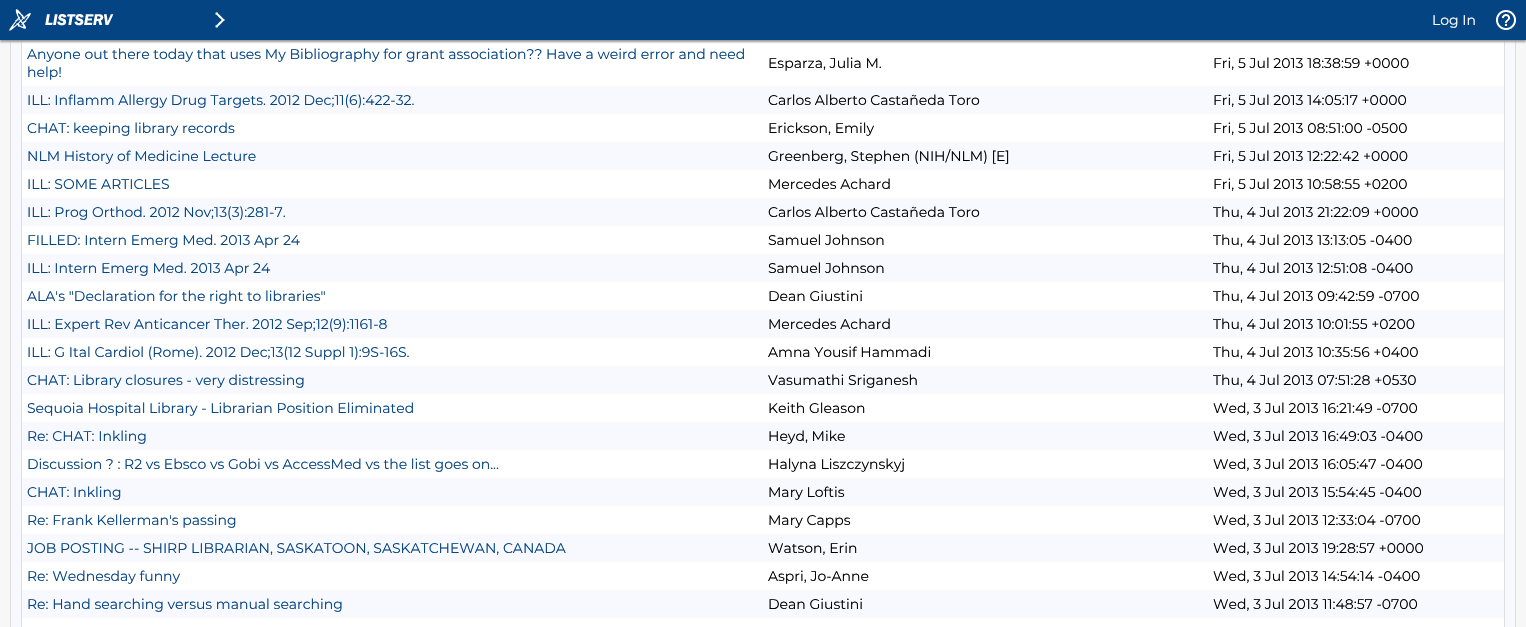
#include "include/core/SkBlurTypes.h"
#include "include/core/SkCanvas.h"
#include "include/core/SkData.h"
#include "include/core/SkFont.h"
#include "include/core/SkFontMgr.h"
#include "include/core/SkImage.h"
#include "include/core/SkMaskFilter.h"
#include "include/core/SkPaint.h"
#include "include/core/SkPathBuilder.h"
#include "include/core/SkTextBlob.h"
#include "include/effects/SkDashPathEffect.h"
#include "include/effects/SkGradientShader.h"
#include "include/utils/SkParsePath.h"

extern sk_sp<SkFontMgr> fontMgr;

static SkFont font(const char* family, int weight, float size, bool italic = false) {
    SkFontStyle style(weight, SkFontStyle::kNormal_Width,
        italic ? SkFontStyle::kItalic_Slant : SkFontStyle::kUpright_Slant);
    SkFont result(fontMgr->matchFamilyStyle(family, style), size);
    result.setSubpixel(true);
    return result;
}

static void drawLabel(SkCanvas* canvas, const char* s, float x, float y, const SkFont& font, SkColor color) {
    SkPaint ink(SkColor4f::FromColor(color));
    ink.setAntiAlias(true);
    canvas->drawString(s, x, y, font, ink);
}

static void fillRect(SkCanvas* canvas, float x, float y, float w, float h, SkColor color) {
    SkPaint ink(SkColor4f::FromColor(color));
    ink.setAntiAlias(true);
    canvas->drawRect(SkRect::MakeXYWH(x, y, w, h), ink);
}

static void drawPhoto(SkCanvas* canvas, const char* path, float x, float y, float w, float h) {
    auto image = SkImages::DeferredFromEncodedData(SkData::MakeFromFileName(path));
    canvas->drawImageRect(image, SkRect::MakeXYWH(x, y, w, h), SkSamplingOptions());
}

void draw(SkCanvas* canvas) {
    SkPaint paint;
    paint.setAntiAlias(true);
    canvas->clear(0xFFF7F7F7);
    fillRect(canvas, 11, 40, 1504, 587, 0xFFF7F9FE);
    paint.setStroke(true);
    paint.setStrokeWidth(1);
    paint.setColor(0xFFDEDEDE);
    canvas->drawRect(SkRect::MakeXYWH(10.5f, -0.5f, 1505, 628), paint);
    canvas->drawRect(SkRect::MakeXYWH(21.5f, -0.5f, 1483, 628), paint);
    fillRect(canvas, 22, 40, 1482, 46, 0xFFFFFFFF);
    paint.setStroke(false);
    paint.setColor(0xFF999999);
    paint.setMaskFilter(SkMaskFilter::MakeBlur(kNormal_SkBlurStyle, 1));
    canvas->drawRect(SkRect::MakeXYWH(0, 2, 1526, 40), paint);
    paint.setMaskFilter(nullptr);
    fillRect(canvas, 0, 0, 1526, 40, 0xFF054483);
    drawPhoto(canvas, "assets/img1.png", 9, 9, 22, 22);
    drawPhoto(canvas, "assets/img2.png", 45, 14, 69, 12);
    drawPhoto(canvas, "assets/img3.png", 215, 12, 10, 16);
    SkFont font1 = font("Montserrat", 100, 14);
    drawLabel(canvas, "Log In", 1432, 25, font1, 0xFFFFFFFF);
    drawPhoto(canvas, "assets/img4.png", 1496, 10, 20, 20);
    drawLabel(canvas, "Anyone out there today that uses My Bibliography for grant association?\077 Have a weird error and need", 27, 59, font1, 0xFF054483);
    drawLabel(canvas, "help!", 27, 77, font1, 0xFF054483);
    drawLabel(canvas, "Esparza, Julia M.", 768, 68, font1, 0xFF000000);
    drawLabel(canvas, "Fri, 5 Jul 2013 18:38:59 +0000", 1213, 68, font1, 0xFF000000);
    drawLabel(canvas, "ILL: Inflamm Allergy Drug Targets. 2012 Dec;11(6):422-32.", 27, 105, font1, 0xFF054483);
    drawLabel(canvas, "Carlos Alberto Castañeda Toro", 768, 105, font1, 0xFF000000);
    drawLabel(canvas, "Fri, 5 Jul 2013 14:05:17 +0000", 1213, 105, font1, 0xFF000000);
    fillRect(canvas, 22, 114, 1482, 28, 0xFFFFFFFF);
    drawLabel(canvas, "CHAT: keeping library records", 27, 133, font1, 0xFF054483);
    drawLabel(canvas, "Erickson, Emily", 768, 133, font1, 0xFF000000);
    drawLabel(canvas, "Fri, 5 Jul 2013 08:51:00 -0500", 1213, 133, font1, 0xFF000000);
    drawLabel(canvas, "NLM History of Medicine Lecture", 27, 161, font1, 0xFF054483);
    drawLabel(canvas, "Greenberg, Stephen (NIH/NLM) [E]", 768, 161, font1, 0xFF000000);
    drawLabel(canvas, "Fri, 5 Jul 2013 12:22:42 +0000", 1213, 161, font1, 0xFF000000);
    fillRect(canvas, 22, 170, 1482, 28, 0xFFFFFFFF);
    drawLabel(canvas, "ILL: SOME ARTICLES", 27, 189, font1, 0xFF054483);
    drawLabel(canvas, "Mercedes Achard", 768, 189, font1, 0xFF000000);
    drawLabel(canvas, "Fri, 5 Jul 2013 10:58:55 +0200", 1213, 189, font1, 0xFF000000);
    drawLabel(canvas, "ILL: Prog Orthod. 2012 Nov;13(3):281-7.", 27, 217, font1, 0xFF054483);
    drawLabel(canvas, "Carlos Alberto Castañeda Toro", 768, 217, font1, 0xFF000000);
    drawLabel(canvas, "Thu, 4 Jul 2013 21:22:09 +0000", 1213, 217, font1, 0xFF000000);
    fillRect(canvas, 22, 226, 1482, 28, 0xFFFFFFFF);
    drawLabel(canvas, "FILLED: Intern Emerg Med. 2013 Apr 24", 27, 245, font1, 0xFF054483);
    drawLabel(canvas, "Samuel Johnson", 768, 245, font1, 0xFF000000);
    drawLabel(canvas, "Thu, 4 Jul 2013 13:13:05 -0400", 1213, 245, font1, 0xFF000000);
    drawLabel(canvas, "ILL: Intern Emerg Med. 2013 Apr 24", 27, 273, font1, 0xFF054483);
    drawLabel(canvas, "Samuel Johnson", 768, 273, font1, 0xFF000000);
    drawLabel(canvas, "Thu, 4 Jul 2013 12:51:08 -0400", 1213, 273, font1, 0xFF000000);
    fillRect(canvas, 22, 282, 1482, 28, 0xFFFFFFFF);
    drawLabel(canvas, "ALA's \"Declaration for the right to libraries\"", 27, 301, font1, 0xFF054483);
    drawLabel(canvas, "Dean Giustini", 768, 301, font1, 0xFF000000);
    drawLabel(canvas, "Thu, 4 Jul 2013 09:42:59 -0700", 1213, 301, font1, 0xFF000000);
    drawLabel(canvas, "ILL: Expert Rev Anticancer Ther. 2012 Sep;12(9):1161-8", 27, 329, font1, 0xFF054483);
    drawLabel(canvas, "Mercedes Achard", 768, 329, font1, 0xFF000000);
    drawLabel(canvas, "Thu, 4 Jul 2013 10:01:55 +0200", 1213, 329, font1, 0xFF000000);
    fillRect(canvas, 22, 338, 1482, 28, 0xFFFFFFFF);
    drawLabel(canvas, "ILL: G Ital Cardiol (Rome). 2012 Dec;13(12 Suppl 1):9S-16S.", 27, 357, font1, 0xFF054483);
    drawLabel(canvas, "Amna Yousif Hammadi", 768, 357, font1, 0xFF000000);
    drawLabel(canvas, "Thu, 4 Jul 2013 10:35:56 +0400", 1213, 357, font1, 0xFF000000);
    drawLabel(canvas, "CHAT: Library closures - very distressing", 27, 385, font1, 0xFF054483);
    drawLabel(canvas, "Vasumathi Sriganesh", 768, 385, font1, 0xFF000000);
    drawLabel(canvas, "Thu, 4 Jul 2013 07:51:28 +0530", 1213, 385, font1, 0xFF000000);
    fillRect(canvas, 22, 394, 1482, 28, 0xFFFFFFFF);
    drawLabel(canvas, "Sequoia Hospital Library - Librarian Position Eliminated", 27, 413, font1, 0xFF054483);
    drawLabel(canvas, "Keith Gleason", 768, 413, font1, 0xFF000000);
    drawLabel(canvas, "Wed, 3 Jul 2013 16:21:49 -0700", 1213, 413, font1, 0xFF000000);
    drawLabel(canvas, "Re: CHAT: Inkling", 27, 441, font1, 0xFF054483);
    drawLabel(canvas, "Heyd, Mike", 768, 441, font1, 0xFF000000);
    drawLabel(canvas, "Wed, 3 Jul 2013 16:49:03 -0400", 1213, 441, font1, 0xFF000000);
    fillRect(canvas, 22, 450, 1482, 28, 0xFFFFFFFF);
    drawLabel(canvas, "Discussion ? : R2 vs Ebsco vs Gobi vs AccessMed vs the list goes on...", 27, 469, font1, 0xFF054483);
    drawLabel(canvas, "Halyna Liszczynskyj", 768, 469, font1, 0xFF000000);
    drawLabel(canvas, "Wed, 3 Jul 2013 16:05:47 -0400", 1213, 469, font1, 0xFF000000);
    drawLabel(canvas, "CHAT: Inkling", 27, 497, font1, 0xFF054483);
    drawLabel(canvas, "Mary Loftis", 768, 497, font1, 0xFF000000);
    drawLabel(canvas, "Wed, 3 Jul 2013 15:54:45 -0400", 1213, 497, font1, 0xFF000000);
    fillRect(canvas, 22, 506, 1482, 28, 0xFFFFFFFF);
    drawLabel(canvas, "Re: Frank Kellerman's passing", 27, 525, font1, 0xFF054483);
    drawLabel(canvas, "Mary Capps", 768, 525, font1, 0xFF000000);
    drawLabel(canvas, "Wed, 3 Jul 2013 12:33:04 -0700", 1213, 525, font1, 0xFF000000);
    drawLabel(canvas, "JOB POSTING -- SHIRP LIBRARIAN, SASKATOON, SASKATCHEWAN, CANADA", 27, 553, font1, 0xFF054483);
    drawLabel(canvas, "Watson, Erin", 768, 553, font1, 0xFF000000);
    drawLabel(canvas, "Wed, 3 Jul 2013 19:28:57 +0000", 1213, 553, font1, 0xFF000000);
    fillRect(canvas, 22, 562, 1482, 28, 0xFFFFFFFF);
    drawLabel(canvas, "Re: Wednesday funny", 27, 581, font1, 0xFF054483);
    drawLabel(canvas, "Aspri, Jo-Anne", 768, 581, font1, 0xFF000000);
    drawLabel(canvas, "Wed, 3 Jul 2013 14:54:14 -0400", 1213, 581, font1, 0xFF000000);
    drawLabel(canvas, "Re: Hand searching versus manual searching", 27, 609, font1, 0xFF054483);
    drawLabel(canvas, "Dean Giustini", 768, 609, font1, 0xFF000000);
    drawLabel(canvas, "Wed, 3 Jul 2013 11:48:57 -0700", 1213, 609, font1, 0xFF000000);
    fillRect(canvas, 22, 618, 1482, 9, 0xFFFFFFFF);
}
